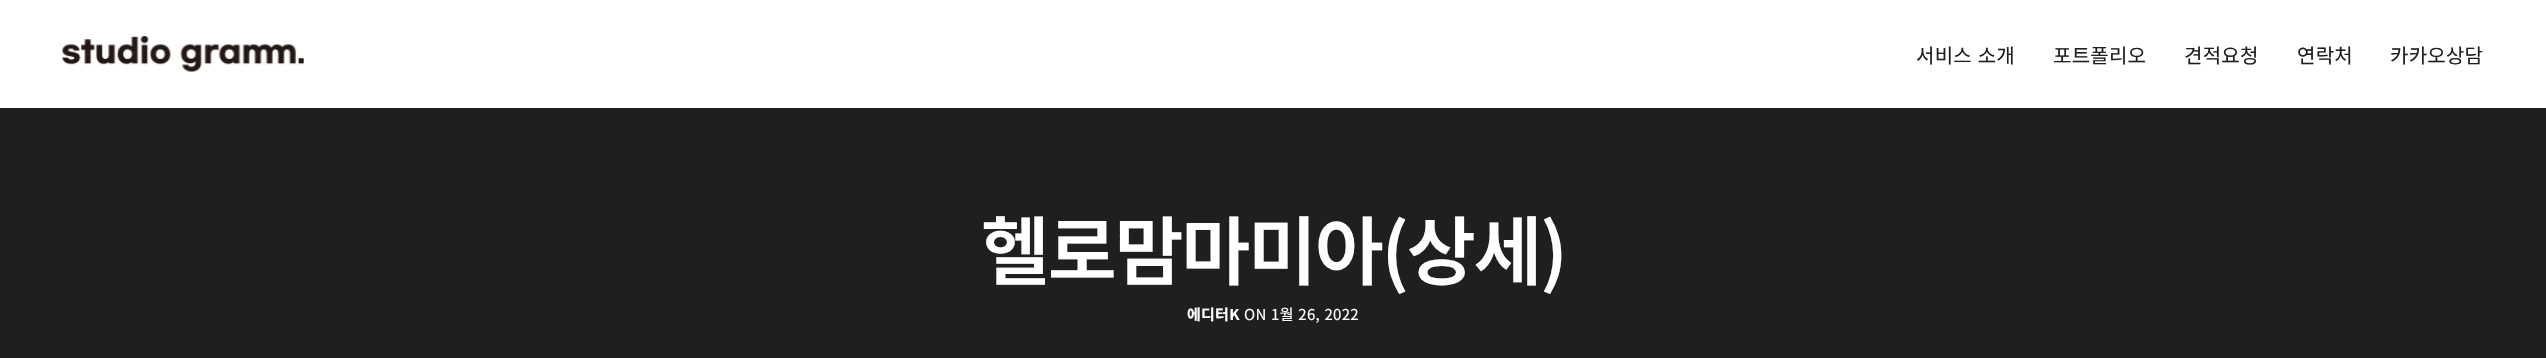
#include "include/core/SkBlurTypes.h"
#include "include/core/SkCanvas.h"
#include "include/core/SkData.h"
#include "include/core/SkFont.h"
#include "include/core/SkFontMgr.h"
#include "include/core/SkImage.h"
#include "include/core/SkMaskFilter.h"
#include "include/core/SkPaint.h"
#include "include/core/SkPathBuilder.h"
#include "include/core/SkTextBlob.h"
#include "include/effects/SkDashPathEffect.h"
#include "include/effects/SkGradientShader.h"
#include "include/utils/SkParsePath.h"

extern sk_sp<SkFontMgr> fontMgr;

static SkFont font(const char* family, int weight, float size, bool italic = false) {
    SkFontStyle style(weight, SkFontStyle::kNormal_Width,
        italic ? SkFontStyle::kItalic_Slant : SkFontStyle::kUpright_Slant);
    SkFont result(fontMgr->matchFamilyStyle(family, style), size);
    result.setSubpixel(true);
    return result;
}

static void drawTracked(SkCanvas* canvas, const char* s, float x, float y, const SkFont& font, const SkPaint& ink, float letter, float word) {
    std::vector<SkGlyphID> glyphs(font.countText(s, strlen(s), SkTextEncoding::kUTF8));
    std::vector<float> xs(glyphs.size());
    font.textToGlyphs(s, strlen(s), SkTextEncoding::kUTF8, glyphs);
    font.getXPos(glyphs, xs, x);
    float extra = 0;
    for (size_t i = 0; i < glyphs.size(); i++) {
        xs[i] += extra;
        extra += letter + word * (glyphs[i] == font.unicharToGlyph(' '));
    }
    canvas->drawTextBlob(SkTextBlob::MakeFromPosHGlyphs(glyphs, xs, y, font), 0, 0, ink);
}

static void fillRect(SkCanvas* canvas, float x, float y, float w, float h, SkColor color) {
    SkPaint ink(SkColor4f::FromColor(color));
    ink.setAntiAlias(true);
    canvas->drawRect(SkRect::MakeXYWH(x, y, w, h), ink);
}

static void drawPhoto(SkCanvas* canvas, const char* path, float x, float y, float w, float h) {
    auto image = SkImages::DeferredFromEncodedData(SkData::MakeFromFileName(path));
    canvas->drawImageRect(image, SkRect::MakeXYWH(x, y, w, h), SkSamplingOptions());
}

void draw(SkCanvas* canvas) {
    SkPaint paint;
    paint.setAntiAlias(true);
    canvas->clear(0xFFFFFFFF);
    drawPhoto(canvas, "assets/img1.png", 62, 36, 242, 36);
    SkFont font1 = font("Noto Sans KR", 400, 20);
    paint.setColor(0xFF1F1F1F);
    drawTracked(canvas, "서비스 소개", 1916, 63, font1, paint, 0.25f, 1);
    drawTracked(canvas, "포트폴리오", 2053, 63, font1, paint, 0.25f, 0);
    drawTracked(canvas, "견적요청", 2184, 63, font1, paint, 0.25f, 0);
    drawTracked(canvas, "연락처", 2297, 63, font1, paint, 0.25f, 0);
    drawTracked(canvas, "카카오상담", 2390, 63, font1, paint, 0.25f, 0);
    fillRect(canvas, 0, 108, 2546, 250, 0xFF1F1F1F);
    SkFont font2 = font("Noto Sans KR", 600, 75);
    paint.setColor(0xFFFFFFFF);
    drawTracked(canvas, "헬로맘마미아(상세)", 981, 279, font2, paint, -2.25f, 0);
    SkFont font3 = font("Noto Sans KR", 700, 15);
    drawTracked(canvas, "에디터K", 1187, 320, font3, paint, 0.25f, 0);
    SkFont font4 = font("Noto Sans KR", 400, 15);
    drawTracked(canvas, "ON 1월 26, 2022", 1244, 320, font4, paint, 0.25f, 1);
}
